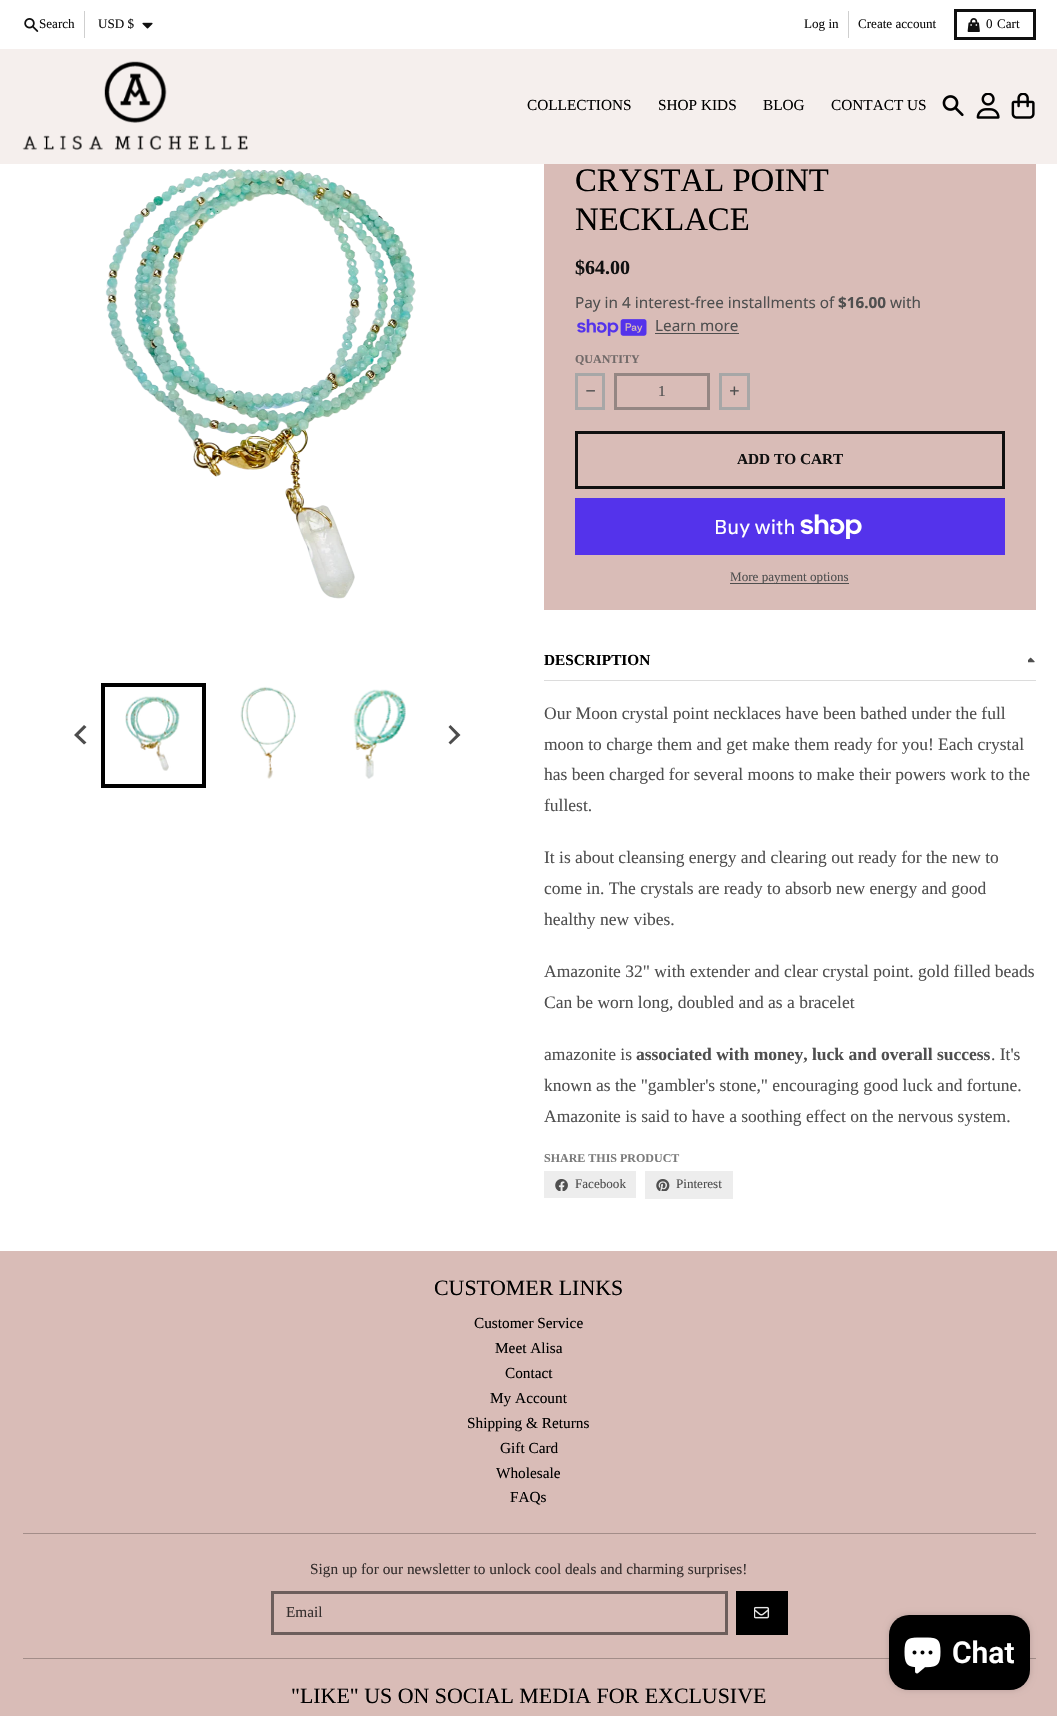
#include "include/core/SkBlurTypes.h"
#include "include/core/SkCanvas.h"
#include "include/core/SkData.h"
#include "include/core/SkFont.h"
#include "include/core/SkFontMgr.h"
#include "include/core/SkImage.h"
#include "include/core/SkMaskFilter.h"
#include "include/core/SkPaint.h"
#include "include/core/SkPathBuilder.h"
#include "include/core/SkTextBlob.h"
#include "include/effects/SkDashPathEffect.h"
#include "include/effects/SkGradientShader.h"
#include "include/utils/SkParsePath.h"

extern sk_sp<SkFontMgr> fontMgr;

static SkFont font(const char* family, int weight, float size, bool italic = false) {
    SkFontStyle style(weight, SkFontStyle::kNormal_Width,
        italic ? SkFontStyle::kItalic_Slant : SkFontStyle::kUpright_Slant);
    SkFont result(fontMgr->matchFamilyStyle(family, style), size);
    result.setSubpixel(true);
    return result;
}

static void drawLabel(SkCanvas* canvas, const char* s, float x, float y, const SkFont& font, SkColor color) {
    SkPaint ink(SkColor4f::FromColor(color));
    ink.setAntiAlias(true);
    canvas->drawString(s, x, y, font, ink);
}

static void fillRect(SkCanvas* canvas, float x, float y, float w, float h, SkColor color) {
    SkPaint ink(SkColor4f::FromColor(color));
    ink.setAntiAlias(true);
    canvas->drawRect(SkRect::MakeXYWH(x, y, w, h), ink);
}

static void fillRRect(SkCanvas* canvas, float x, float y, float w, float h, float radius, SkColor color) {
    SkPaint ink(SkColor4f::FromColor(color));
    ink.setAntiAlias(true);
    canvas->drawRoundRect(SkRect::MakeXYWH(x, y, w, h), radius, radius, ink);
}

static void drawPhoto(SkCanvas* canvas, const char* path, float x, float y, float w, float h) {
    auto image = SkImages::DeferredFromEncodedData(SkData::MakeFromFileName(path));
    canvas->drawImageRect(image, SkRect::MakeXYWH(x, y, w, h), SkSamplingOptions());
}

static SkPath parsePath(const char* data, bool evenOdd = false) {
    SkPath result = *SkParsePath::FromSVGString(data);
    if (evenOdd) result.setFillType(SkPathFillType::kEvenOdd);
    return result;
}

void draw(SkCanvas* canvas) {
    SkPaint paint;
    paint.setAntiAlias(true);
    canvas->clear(0xFFD9BCB7);
    fillRect(canvas, 0, 0, 1057, 49, 0xFFFFFFFF);
    drawPhoto(canvas, "assets/img1.png", 24, 18, 15, 14);
    SkFont font1 = font("Liberation Serif", 400, 13.1f);
    drawLabel(canvas, "Search", 39, 28, font1, 0xFF101010);
    fillRect(canvas, 84, 11, 1, 27, 0xFFCFCFCF);
    drawLabel(canvas, "USD $", 98, 28, font1, 0xFF101010);
    drawPhoto(canvas, "assets/img2.png", 142, 22, 11, 7);
    drawLabel(canvas, "Log in", 804, 28, font1, 0xFF101010);
    fillRect(canvas, 848, 11, 1, 27, 0xFFCFCFCF);
    drawLabel(canvas, "Create account", 858, 28, font1, 0xFF101010);
    paint.setStroke(true);
    paint.setStrokeWidth(3);
    paint.setColor(0xFF101010);
    canvas->drawRect(SkRect::MakeXYWH(955.5f, 10.5f, 79, 28), paint);
    drawPhoto(canvas, "assets/img3.png", 967, 18, 13, 14);
    drawLabel(canvas, "0", 986, 28, font1, 0xFF101010);
    drawLabel(canvas, "Cart", 997, 28, font1, 0xFF101010);
    fillRect(canvas, 0, 49, 1057, 115, 0xFFF5EFED);
    drawPhoto(canvas, "assets/img4.png", 22, 61, 226, 89);
    SkFont font2 = font("Liberation Serif", 400, 15.3f);
    drawLabel(canvas, "COLLECTIONS", 527, 110, font2, 0xFF000000);
    drawLabel(canvas, "SHOP KIDS", 658, 110, font2, 0xFF000000);
    drawLabel(canvas, "BLOG", 763, 110, font2, 0xFF000000);
    drawLabel(canvas, "CONTACT US", 831, 110, font2, 0xFF000000);
    drawPhoto(canvas, "assets/img5.png", 942, 95, 22, 22);
    drawPhoto(canvas, "assets/img6.png", 976, 93, 24, 26);
    drawPhoto(canvas, "assets/img7.png", 1011, 93, 24, 26);
    fillRect(canvas, 0, 164, 1057, 1087, 0xFFFFFFFF);
    drawPhoto(canvas, "assets/img8.png", 105, 169, 311, 430);
    paint.setStrokeWidth(4);
    paint.setColor(0xFF000000);
    canvas->drawRect(SkRect::MakeXYWH(103, 685, 101, 101), paint);
    drawPhoto(canvas, "assets/img9.png", 125, 696, 55, 75);
    drawPhoto(canvas, "assets/img10.png", 240, 686, 56, 93);
    drawPhoto(canvas, "assets/img11.png", 353, 689, 53, 90);
    paint.setStroke(false);
    paint.setColor(0xFF4D4D4D);
    canvas->drawPath(parsePath("M84 725L86.5 727L78.5 735L86.5 742.5L84 744.5L74 735Z"), paint);
    canvas->drawPath(parsePath("M450.5 725L448.5 727L456 735L448.5 742.5L450.5 744.5L460.5 735Z"), paint);
    fillRect(canvas, 544, 164, 492, 446, 0xFFD9BCB7);
    SkFont font3 = font("Liberation Serif", 400, 32.75f);
    drawLabel(canvas, "CRYSTAL POINT", 575, 191, font3, 0xFF000000);
    drawLabel(canvas, "NECKLACE", 575, 230, font3, 0xFF000000);
    SkFont font4 = font("Liberation Serif", 700, 20);
    drawLabel(canvas, "$64.00", 575, 274, font4, 0xFF101010);
    SkFont font5 = font("Noto Sans", 400, 15.3f);
    drawLabel(canvas, "Pay in 4 interest-free installments of", 575, 308, font5, 0xFF4F4F4F);
    SkFont font6 = font("Noto Sans", 700, 15.3f);
    drawLabel(canvas, "$16.00", 838, 308, font6, 0xFF4F4F4F);
    drawLabel(canvas, "with", 890, 308, font5, 0xFF4F4F4F);
    drawPhoto(canvas, "assets/img12.png", 577, 319, 70, 17);
    drawLabel(canvas, "Learn more", 655, 331, font5, 0xFF4F4F4F);
    fillRect(canvas, 655, 333, 84, 1, 0xFF4F4F4F);
    SkFont font7 = font("Liberation Serif", 700, 12);
    drawLabel(canvas, "QUANTITY", 575, 363, font7, 0xFF726A69);
    paint.setStroke(true);
    paint.setStrokeWidth(3);
    paint.setColor(0xFFA7A7A7);
    canvas->drawRect(SkRect::MakeXYWH(576.5f, 374.5f, 27, 34), paint);
    drawPhoto(canvas, "assets/img13.png", 586, 390, 9, 2);
    paint.setColor(0xFF948683);
    canvas->drawRect(SkRect::MakeXYWH(615.5f, 374.5f, 93, 34), paint);
    drawLabel(canvas, "1", 658, 396, font2, 0xFF4F4F4F);
    paint.setColor(0xFFA7A7A7);
    canvas->drawRect(SkRect::MakeXYWH(720.5f, 374.5f, 28, 34), paint);
    drawPhoto(canvas, "assets/img14.png", 730, 386, 9, 10);
    paint.setColor(0xFF101010);
    canvas->drawRect(SkRect::MakeXYWH(576.5f, 432.5f, 427, 55), paint);
    SkFont font8 = font("Liberation Serif", 700, 15.3f);
    drawLabel(canvas, "ADD TO CART", 737, 464, font8, 0xFF101010);
    fillRect(canvas, 575, 498, 430, 57, 0xFF5433EB);
    SkFont font9 = font("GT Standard", 400, 20);
    drawLabel(canvas, "Buy with", 714, 534, font9, 0xFFFFFFFF);
    drawPhoto(canvas, "assets/img15.png", 800, 514, 62, 25);
    fillRect(canvas, 730, 583, 119, 1, 0xFF4F4F4F);
    drawLabel(canvas, "More payment options", 730, 581, font1, 0xFF4F4F4F);
    fillRect(canvas, 544, 680, 492, 1, 0xFFDCDCDC);
    drawLabel(canvas, "DESCRIPTION", 544, 665, font8, 0xFF000000);
    drawPhoto(canvas, "assets/img16.png", 1028, 657, 7, 6);
    SkFont font10 = font("Liberation Serif", 400, 17.5f);
    drawLabel(canvas, "Our Moon crystal point necklaces have been bathed under the full", 544, 719, font10, 0xFF4F4F4F);
    drawLabel(canvas, "moon to charge them and get make them ready for you! Each crystal", 544, 750, font10, 0xFF4F4F4F);
    drawLabel(canvas, "has been charged for several moons to make their powers work to the", 544, 780, font10, 0xFF4F4F4F);
    drawLabel(canvas, "fullest.", 544, 811, font10, 0xFF4F4F4F);
    drawLabel(canvas, "It is about cleansing energy and clearing out ready for the new to", 544, 863, font10, 0xFF4F4F4F);
    drawLabel(canvas, "come in. The crystals are ready to absorb new energy and good", 544, 894, font10, 0xFF4F4F4F);
    drawLabel(canvas, "healthy new vibes.", 544, 925, font10, 0xFF4F4F4F);
    drawLabel(canvas, "Amazonite 32\" with extender and clear crystal point. gold filled beads", 544, 977, font10, 0xFF4F4F4F);
    drawLabel(canvas, "Can be worn long, doubled and as a bracelet", 544, 1008, font10, 0xFF4F4F4F);
    drawLabel(canvas, "amazonite is", 544, 1060, font10, 0xFF4F4F4F);
    SkFont font11 = font("Liberation Serif", 700, 17.5f);
    drawLabel(canvas, "associated with money, luck and overall success", 636, 1060, font11, 0xFF4F4F4F);
    drawLabel(canvas, ". It's", 991, 1060, font10, 0xFF4F4F4F);
    drawLabel(canvas, "known as the \"gambler's stone,\" encouraging good luck and fortune.", 544, 1091, font10, 0xFF4F4F4F);
    drawLabel(canvas, "Amazonite is said to have a soothing effect on the nervous system.", 544, 1122, font10, 0xFF4F4F4F);
    drawLabel(canvas, "SHARE THIS PRODUCT", 544, 1162, font7, 0xFF7B7B7B);
    fillRect(canvas, 544, 1171, 92, 27, 0xFFEDEDED);
    drawPhoto(canvas, "assets/img17.png", 555, 1179, 13, 12);
    drawLabel(canvas, "Facebook", 575, 1188, font1, 0xFF4F4F4F);
    fillRect(canvas, 645, 1171, 88, 28, 0xFFEDEDED);
    drawPhoto(canvas, "assets/img18.png", 656, 1179, 14, 12);
    drawLabel(canvas, "Pinterest", 676, 1188, font1, 0xFF4F4F4F);
    SkFont font12 = font("Liberation Serif", 400, 21.9f);
    drawLabel(canvas, "CUSTOMER LINKS", 434, 1295, font12, 0xFF000000);
    drawLabel(canvas, "Customer Service", 474, 1328, font2, 0xFF000000);
    drawLabel(canvas, "Meet Alisa", 495, 1353, font2, 0xFF000000);
    drawLabel(canvas, "Contact", 505, 1378, font2, 0xFF000000);
    drawLabel(canvas, "My Account", 490, 1403, font2, 0xFF000000);
    drawLabel(canvas, "Shipping & Returns", 467, 1428, font2, 0xFF000000);
    drawLabel(canvas, "Gift Card", 500, 1453, font2, 0xFF000000);
    drawLabel(canvas, "Wholesale", 496, 1478, font2, 0xFF000000);
    drawLabel(canvas, "FAQs", 510, 1502, font2, 0xFF000000);
    fillRect(canvas, 23, 1533, 1013, 1, 0xFFA38D89);
    drawLabel(canvas, "Sign up for our newsletter to unlock cool deals and charming surprises!", 310, 1574, font2, 0xFF362F2E);
    paint.setColor(0xFF6D5E5C);
    canvas->drawRect(SkRect::MakeXYWH(272.5f, 1592.5f, 454, 41), paint);
    drawLabel(canvas, "Email", 286, 1617, font2, 0xFF362F2E);
    fillRect(canvas, 736, 1591, 52, 44, 0xFF000000);
    drawPhoto(canvas, "assets/img19.png", 754, 1606, 16, 13);
    fillRect(canvas, 23, 1658, 1013, 1, 0xFFA38D89);
    drawLabel(canvas, "\"LIKE\" US ON SOCIAL MEDIA FOR EXCLUSIVE", 291, 1703, font12, 0xFF000000);
    paint.setStroke(false);
    paint.setColor(0x26000000);
    paint.setMaskFilter(SkMaskFilter::MakeBlur(kNormal_SkBlurStyle, 3));
    canvas->drawRoundRect(SkRect::MakeXYWH(889, 1615, 141, 75), 20, 20, paint);
    paint.setMaskFilter(nullptr);
    fillRRect(canvas, 889, 1615, 141, 75, 20, 0xFF000000);
    drawPhoto(canvas, "assets/img20.png", 904, 1637, 37, 37);
    SkFont font13 = font("Roboto", 600, 30);
    drawLabel(canvas, "Chat", 952, 1663, font13, 0xFFFFFFFF);
}
